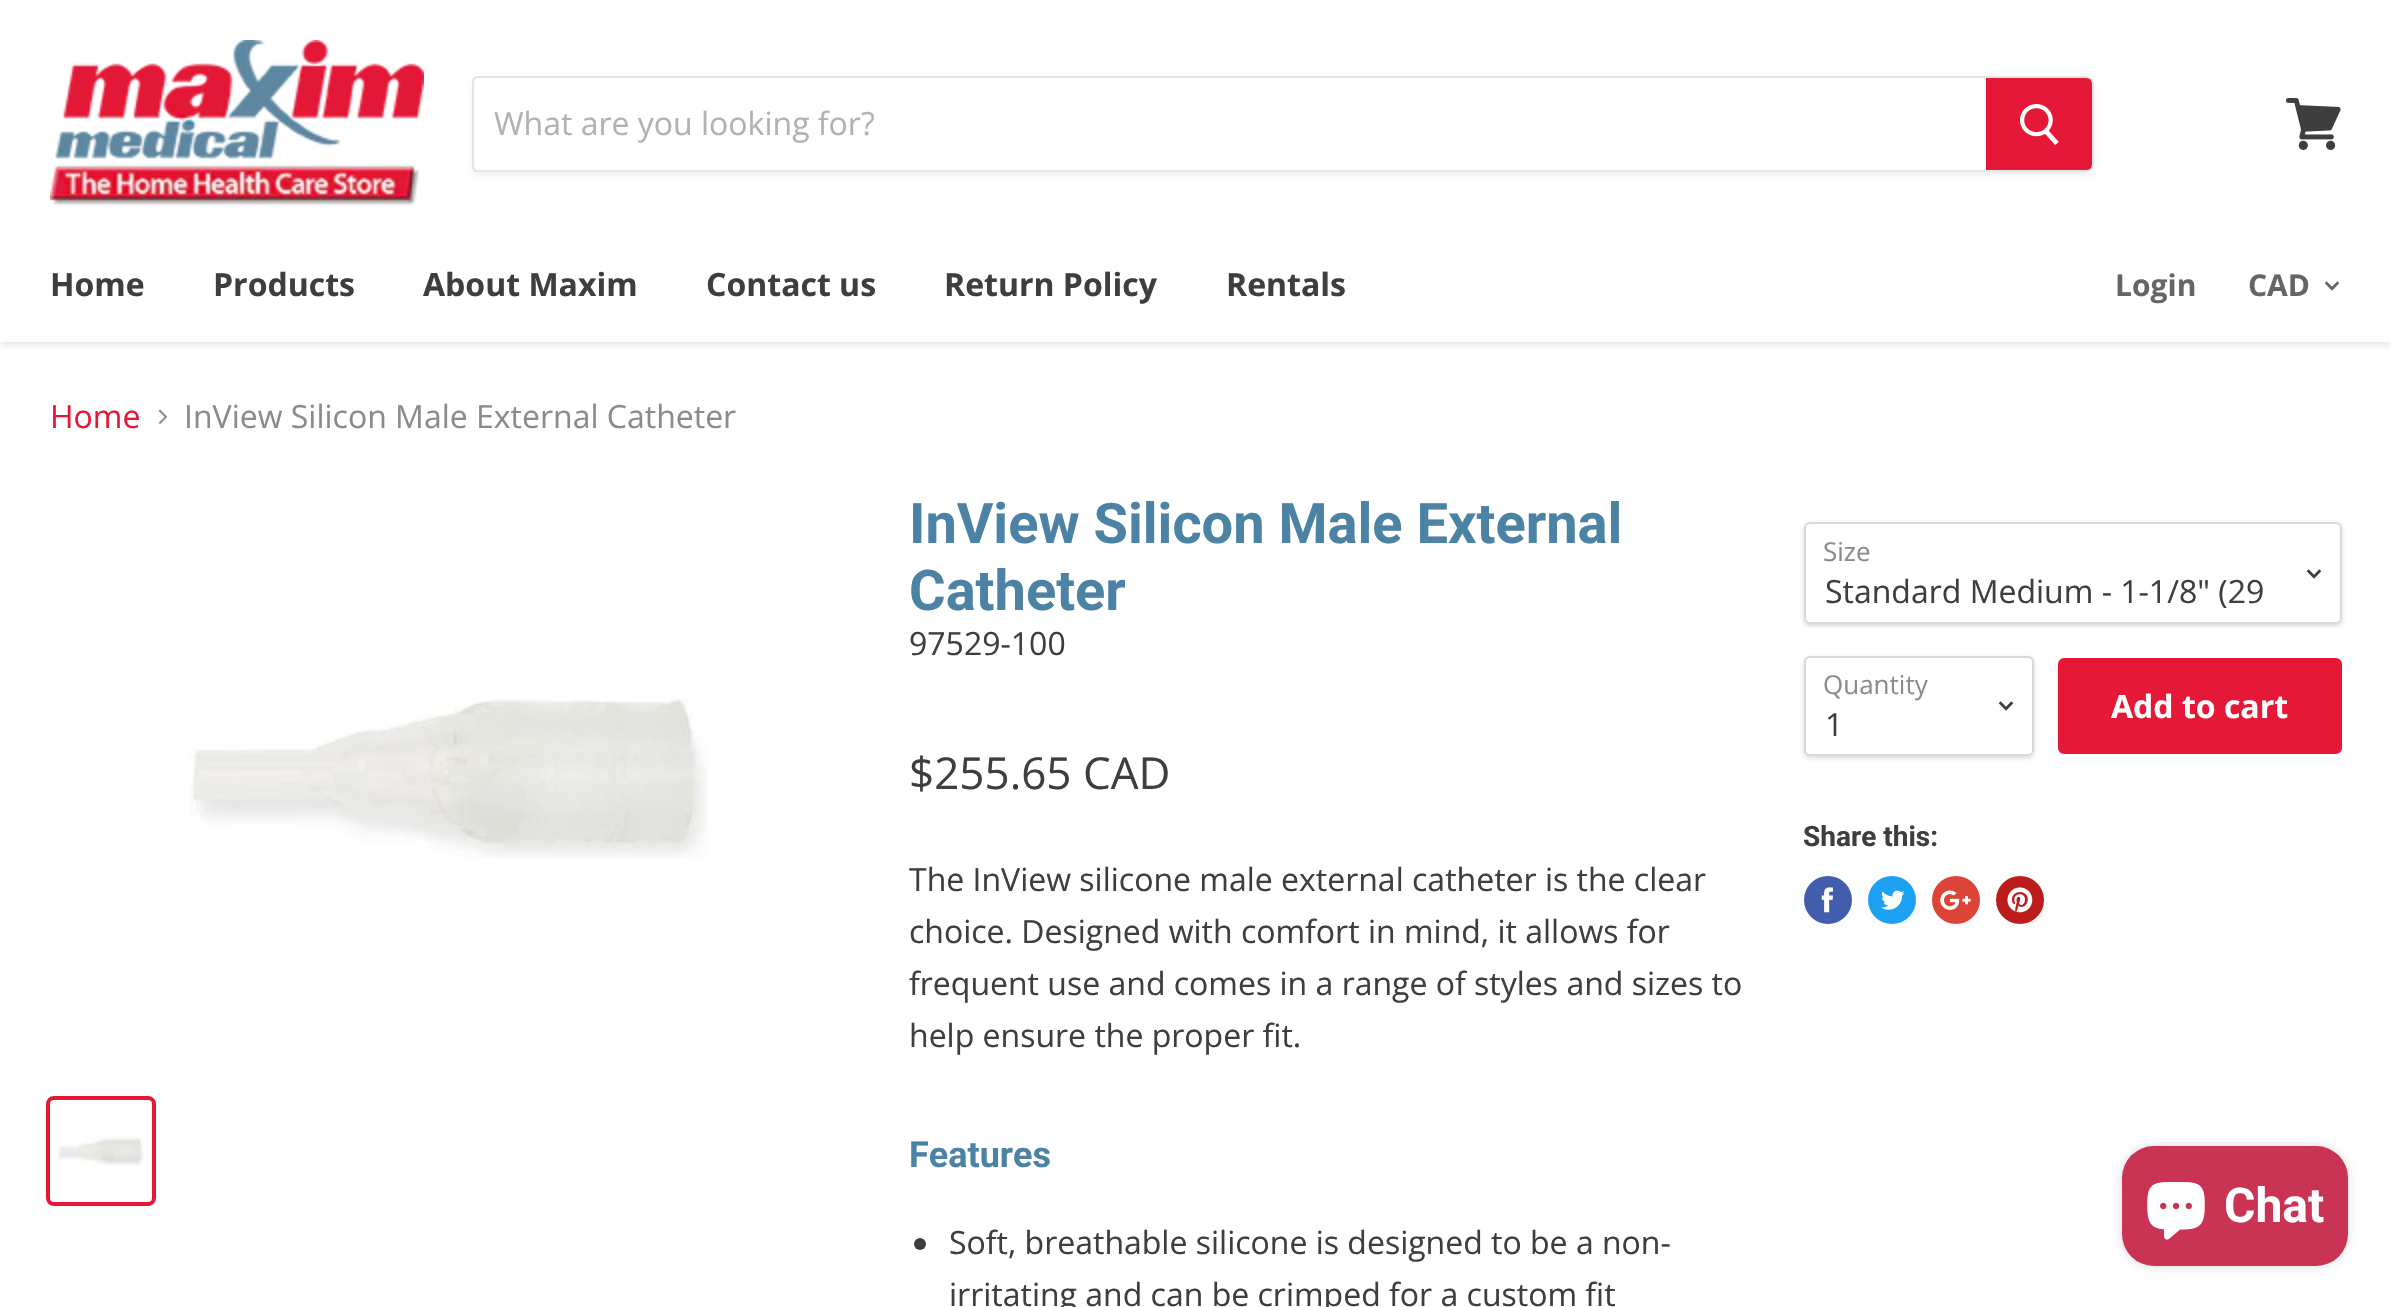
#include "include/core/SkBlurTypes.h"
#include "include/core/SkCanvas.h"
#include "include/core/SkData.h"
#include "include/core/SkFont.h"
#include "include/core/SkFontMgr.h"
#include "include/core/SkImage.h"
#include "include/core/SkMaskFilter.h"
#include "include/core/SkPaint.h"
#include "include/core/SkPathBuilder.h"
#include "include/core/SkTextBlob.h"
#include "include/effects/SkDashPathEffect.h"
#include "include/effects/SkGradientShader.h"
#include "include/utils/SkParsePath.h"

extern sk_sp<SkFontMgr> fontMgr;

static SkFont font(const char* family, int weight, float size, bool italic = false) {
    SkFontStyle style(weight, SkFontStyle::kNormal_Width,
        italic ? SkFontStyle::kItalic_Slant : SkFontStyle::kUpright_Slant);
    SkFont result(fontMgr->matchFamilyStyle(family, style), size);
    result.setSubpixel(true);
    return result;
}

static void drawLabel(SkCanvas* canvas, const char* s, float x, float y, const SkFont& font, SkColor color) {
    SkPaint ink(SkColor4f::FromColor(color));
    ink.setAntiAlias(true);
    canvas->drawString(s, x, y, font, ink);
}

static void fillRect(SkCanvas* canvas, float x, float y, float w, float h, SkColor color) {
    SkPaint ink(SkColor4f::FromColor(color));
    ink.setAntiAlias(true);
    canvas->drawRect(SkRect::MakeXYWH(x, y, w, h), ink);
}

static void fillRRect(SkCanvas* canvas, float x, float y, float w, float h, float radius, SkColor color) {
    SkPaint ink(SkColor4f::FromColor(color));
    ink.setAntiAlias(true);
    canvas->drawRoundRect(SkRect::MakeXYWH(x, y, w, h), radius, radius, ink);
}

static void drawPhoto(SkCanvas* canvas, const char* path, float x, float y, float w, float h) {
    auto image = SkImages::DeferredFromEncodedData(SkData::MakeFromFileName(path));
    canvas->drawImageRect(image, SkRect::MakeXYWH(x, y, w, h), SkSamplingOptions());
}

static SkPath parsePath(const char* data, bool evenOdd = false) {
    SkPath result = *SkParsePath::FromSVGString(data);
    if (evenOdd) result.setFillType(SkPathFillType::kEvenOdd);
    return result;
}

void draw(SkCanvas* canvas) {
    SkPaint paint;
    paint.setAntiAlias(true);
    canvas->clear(0xFFFFFFFF);
    canvas->save();
    canvas->clipRect(SkRect::MakeXYWH(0, 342, 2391, 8));
    paint.setColor(0x407F7F7F);
    paint.setMaskFilter(SkMaskFilter::MakeBlur(kNormal_SkBlurStyle, 4));
    canvas->drawRect(SkRect::MakeXYWH(0, 228, 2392, 116), paint);
    paint.setMaskFilter(nullptr);
    canvas->restore();
    fillRect(canvas, 0, 222, 2391, 4, 0xFFFFFFFF);
    drawPhoto(canvas, "assets/img1.png", 50, 40, 374, 166);
    canvas->save();
    canvas->clipPath(parsePath("M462 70H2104V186H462ZM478 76H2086C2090.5 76 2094 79.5 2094 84V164C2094 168.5 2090.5 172 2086 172H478C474.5 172 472 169.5 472 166V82C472 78.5 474.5 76 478 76Z", true), true);
    paint.setColor(0x1C7F7F7F);
    paint.setMaskFilter(SkMaskFilter::MakeBlur(kNormal_SkBlurStyle, 3));
    canvas->drawRoundRect(SkRect::MakeXYWH(472, 80, 1622, 96), 8, 8, paint);
    paint.setMaskFilter(nullptr);
    canvas->restore();
    paint.setStroke(true);
    paint.setStrokeWidth(2);
    paint.setColor(0x337F7F7F);
    canvas->drawPath(parsePath("M478 77H2086C2090 77 2093 80 2093 84V164C2093 168 2090 171 2086 171H478C475 171 473 169 473 166V82C473 79 475 77 478 77Z"), paint);
    SkFont font1 = font("Open Sans", 400, 32);
    drawLabel(canvas, "What are you looking for?", 494, 135, font1, 0xFFB2B2B2);
    paint.setStroke(false);
    paint.setColor(0xFFE51937);
    canvas->drawPath(parsePath("M1987 79H2086C2089 79 2091 81 2091 84V164C2091 167 2089 169 2086 169H1987Z"), paint);
    paint.setStroke(true);
    canvas->drawPath(parsePath("M1987 79H2086C2089 79 2091 81 2091 84V164C2091 167 2089 169 2086 169H1987Z"), paint);
    drawPhoto(canvas, "assets/img2.png", 2020, 104, 39, 41);
    drawPhoto(canvas, "assets/img3.png", 2286, 98, 55, 52);
    SkFont font2 = font("Open Sans", 700, 32);
    drawLabel(canvas, "Home", 50, 296, font2, 0xFF3E3E3E);
    drawLabel(canvas, "Products", 213, 296, font2, 0xFF3E3E3E);
    drawLabel(canvas, "About Maxim", 423, 296, font2, 0xFF3E3E3E);
    drawLabel(canvas, "Contact us", 706, 296, font2, 0xFF3E3E3E);
    drawLabel(canvas, "Return Policy", 944, 296, font2, 0xFF3E3E3E);
    drawLabel(canvas, "Rentals", 1226, 296, font2, 0xFF3E3E3E);
    SkFont font3 = font("Open Sans", 700, 30);
    drawLabel(canvas, "Login", 2115, 296, font3, 0xFF656565);
    drawLabel(canvas, "CAD", 2248, 296, font3, 0xFF656565);
    drawPhoto(canvas, "assets/img4.png", 2324, 281, 16, 10);
    drawLabel(canvas, "Home", 50, 428, font1, 0xFFE51937);
    drawPhoto(canvas, "assets/img5.png", 158, 409, 10, 15);
    drawLabel(canvas, "InView Silicon Male External Catheter", 184, 428, font1, 0xFF8B8B8B);
    drawPhoto(canvas, "assets/img6.png", 190, 698, 518, 161);
    paint.setStrokeWidth(4);
    canvas->drawRoundRect(SkRect::MakeXYWH(48, 1098, 106, 106), 6, 6, paint);
    drawPhoto(canvas, "assets/img7.png", 58, 1136, 86, 30);
    SkFont font4 = font("Roboto", 700, 56);
    drawLabel(canvas, "InView Silicon Male External", 909, 543, font4, 0xFF4C82A4);
    drawLabel(canvas, "Catheter", 909, 610, font4, 0xFF4C82A4);
    drawLabel(canvas, "97529-100", 909, 655, font1, 0xFF3E3E3E);
    SkFont font5 = font("Open Sans", 400, 44);
    drawLabel(canvas, "$255.65 CAD", 909, 789, font5, 0xFF3E3E3E);
    drawLabel(canvas, "The InView silicone male external catheter is the clear", 909, 891, font1, 0xFF3E3E3E);
    drawLabel(canvas, "choice. Designed with comfort in mind, it allows for", 909, 943, font1, 0xFF3E3E3E);
    drawLabel(canvas, "frequent use and comes in a range of styles and sizes to", 909, 995, font1, 0xFF3E3E3E);
    drawLabel(canvas, "help ensure the proper fit.", 909, 1047, font1, 0xFF3E3E3E);
    SkFont font6 = font("Roboto", 700, 36);
    drawLabel(canvas, "Features", 909, 1167, font6, 0xFF4C82A4);
    paint.setStroke(false);
    paint.setColor(0xFF3E3E3E);
    canvas->drawCircle(920, 1244, 6, paint);
    drawLabel(canvas, "Soft, breathable silicone is designed to be a non-", 949, 1254, font1, 0xFF3E3E3E);
    drawLabel(canvas, "irritating and can be crimped for a custom fit", 949, 1306, font1, 0xFF3E3E3E);
    canvas->save();
    canvas->clipPath(parsePath("M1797 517H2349V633H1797ZM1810 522H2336C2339.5 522 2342 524.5 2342 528V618C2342 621.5 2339.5 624 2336 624H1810C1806.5 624 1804 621.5 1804 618V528C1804 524.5 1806.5 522 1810 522Z", true), true);
    paint.setColor(0x26000000);
    paint.setMaskFilter(SkMaskFilter::MakeBlur(kNormal_SkBlurStyle, 2));
    canvas->drawRoundRect(SkRect::MakeXYWH(1804, 524, 538, 102), 6, 6, paint);
    paint.setMaskFilter(nullptr);
    canvas->restore();
    paint.setStroke(true);
    paint.setStrokeWidth(2);
    paint.setColor(0x4D7F7F7F);
    canvas->drawRoundRect(SkRect::MakeXYWH(1805, 523, 536, 100), 5, 5, paint);
    SkFont font7 = font("Open Sans", 400, 26);
    drawLabel(canvas, "Size", 1823, 561, font7, 0xFF8B8B8B);
    drawPhoto(canvas, "assets/img8.png", 2306, 569, 16, 10);
    drawLabel(canvas, "Standard Medium - 1-1/8\" (29", 1825, 603, font1, 0xFF3E3E3E);
    canvas->save();
    canvas->clipPath(parsePath("M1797 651H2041V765H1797ZM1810 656H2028C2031.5 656 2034 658.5 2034 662V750C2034 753.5 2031.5 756 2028 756H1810C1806.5 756 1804 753.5 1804 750V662C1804 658.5 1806.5 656 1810 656Z", true), true);
    paint.setStroke(false);
    paint.setColor(0x26000000);
    paint.setMaskFilter(SkMaskFilter::MakeBlur(kNormal_SkBlurStyle, 2));
    canvas->drawRoundRect(SkRect::MakeXYWH(1804, 658, 230, 100), 6, 6, paint);
    paint.setMaskFilter(nullptr);
    canvas->restore();
    paint.setStroke(true);
    paint.setColor(0x4D7F7F7F);
    canvas->drawRoundRect(SkRect::MakeXYWH(1805, 657, 228, 98), 5, 5, paint);
    drawLabel(canvas, "Quantity", 1823, 694, font7, 0xFF8B8B8B);
    drawPhoto(canvas, "assets/img8.png", 1998, 701, 16, 10);
    drawLabel(canvas, "1", 1825, 736, font1, 0xFF3E3E3E);
    paint.setStroke(false);
    paint.setColor(0xFFE51937);
    canvas->drawRoundRect(SkRect::MakeXYWH(2059, 659, 282, 94), 5, 5, paint);
    paint.setStroke(true);
    canvas->drawRoundRect(SkRect::MakeXYWH(2059, 659, 282, 94), 5, 5, paint);
    drawLabel(canvas, "Add to cart", 2111, 718, font2, 0xFFFFFFFF);
    SkFont font8 = font("Roboto", 700, 28);
    drawLabel(canvas, "Share this:", 1803, 846, font8, 0xFF3E3E3E);
    paint.setStroke(false);
    paint.setColor(0xFF425DAB);
    canvas->drawCircle(1828, 900, 24, paint);
    drawPhoto(canvas, "assets/img9.png", 1821, 887, 12, 26);
    paint.setColor(0xFF1DA1F2);
    canvas->drawCircle(1892, 900, 24, paint);
    drawPhoto(canvas, "assets/img10.png", 1881, 890, 24, 20);
    paint.setColor(0xFFDB4437);
    canvas->drawCircle(1956, 900, 24, paint);
    drawPhoto(canvas, "assets/img11.png", 1940, 890, 31, 20);
    paint.setColor(0xFFBD1C1C);
    canvas->drawCircle(2020, 900, 24, paint);
    drawPhoto(canvas, "assets/img12.png", 2007, 887, 26, 26);
    paint.setColor(0x26000000);
    paint.setMaskFilter(SkMaskFilter::MakeBlur(kNormal_SkBlurStyle, 5));
    canvas->drawRoundRect(SkRect::MakeXYWH(2122, 1146, 226, 120), 32, 32, paint);
    paint.setMaskFilter(nullptr);
    fillRRect(canvas, 2122, 1146, 226, 120, 32, 0xFFC93354);
    drawPhoto(canvas, "assets/img13.png", 2147, 1182, 58, 58);
    SkFont font9 = font("Roboto", 700, 48);
    drawLabel(canvas, "Chat", 2224, 1222, font9, 0xFFFFFFFF);
}
